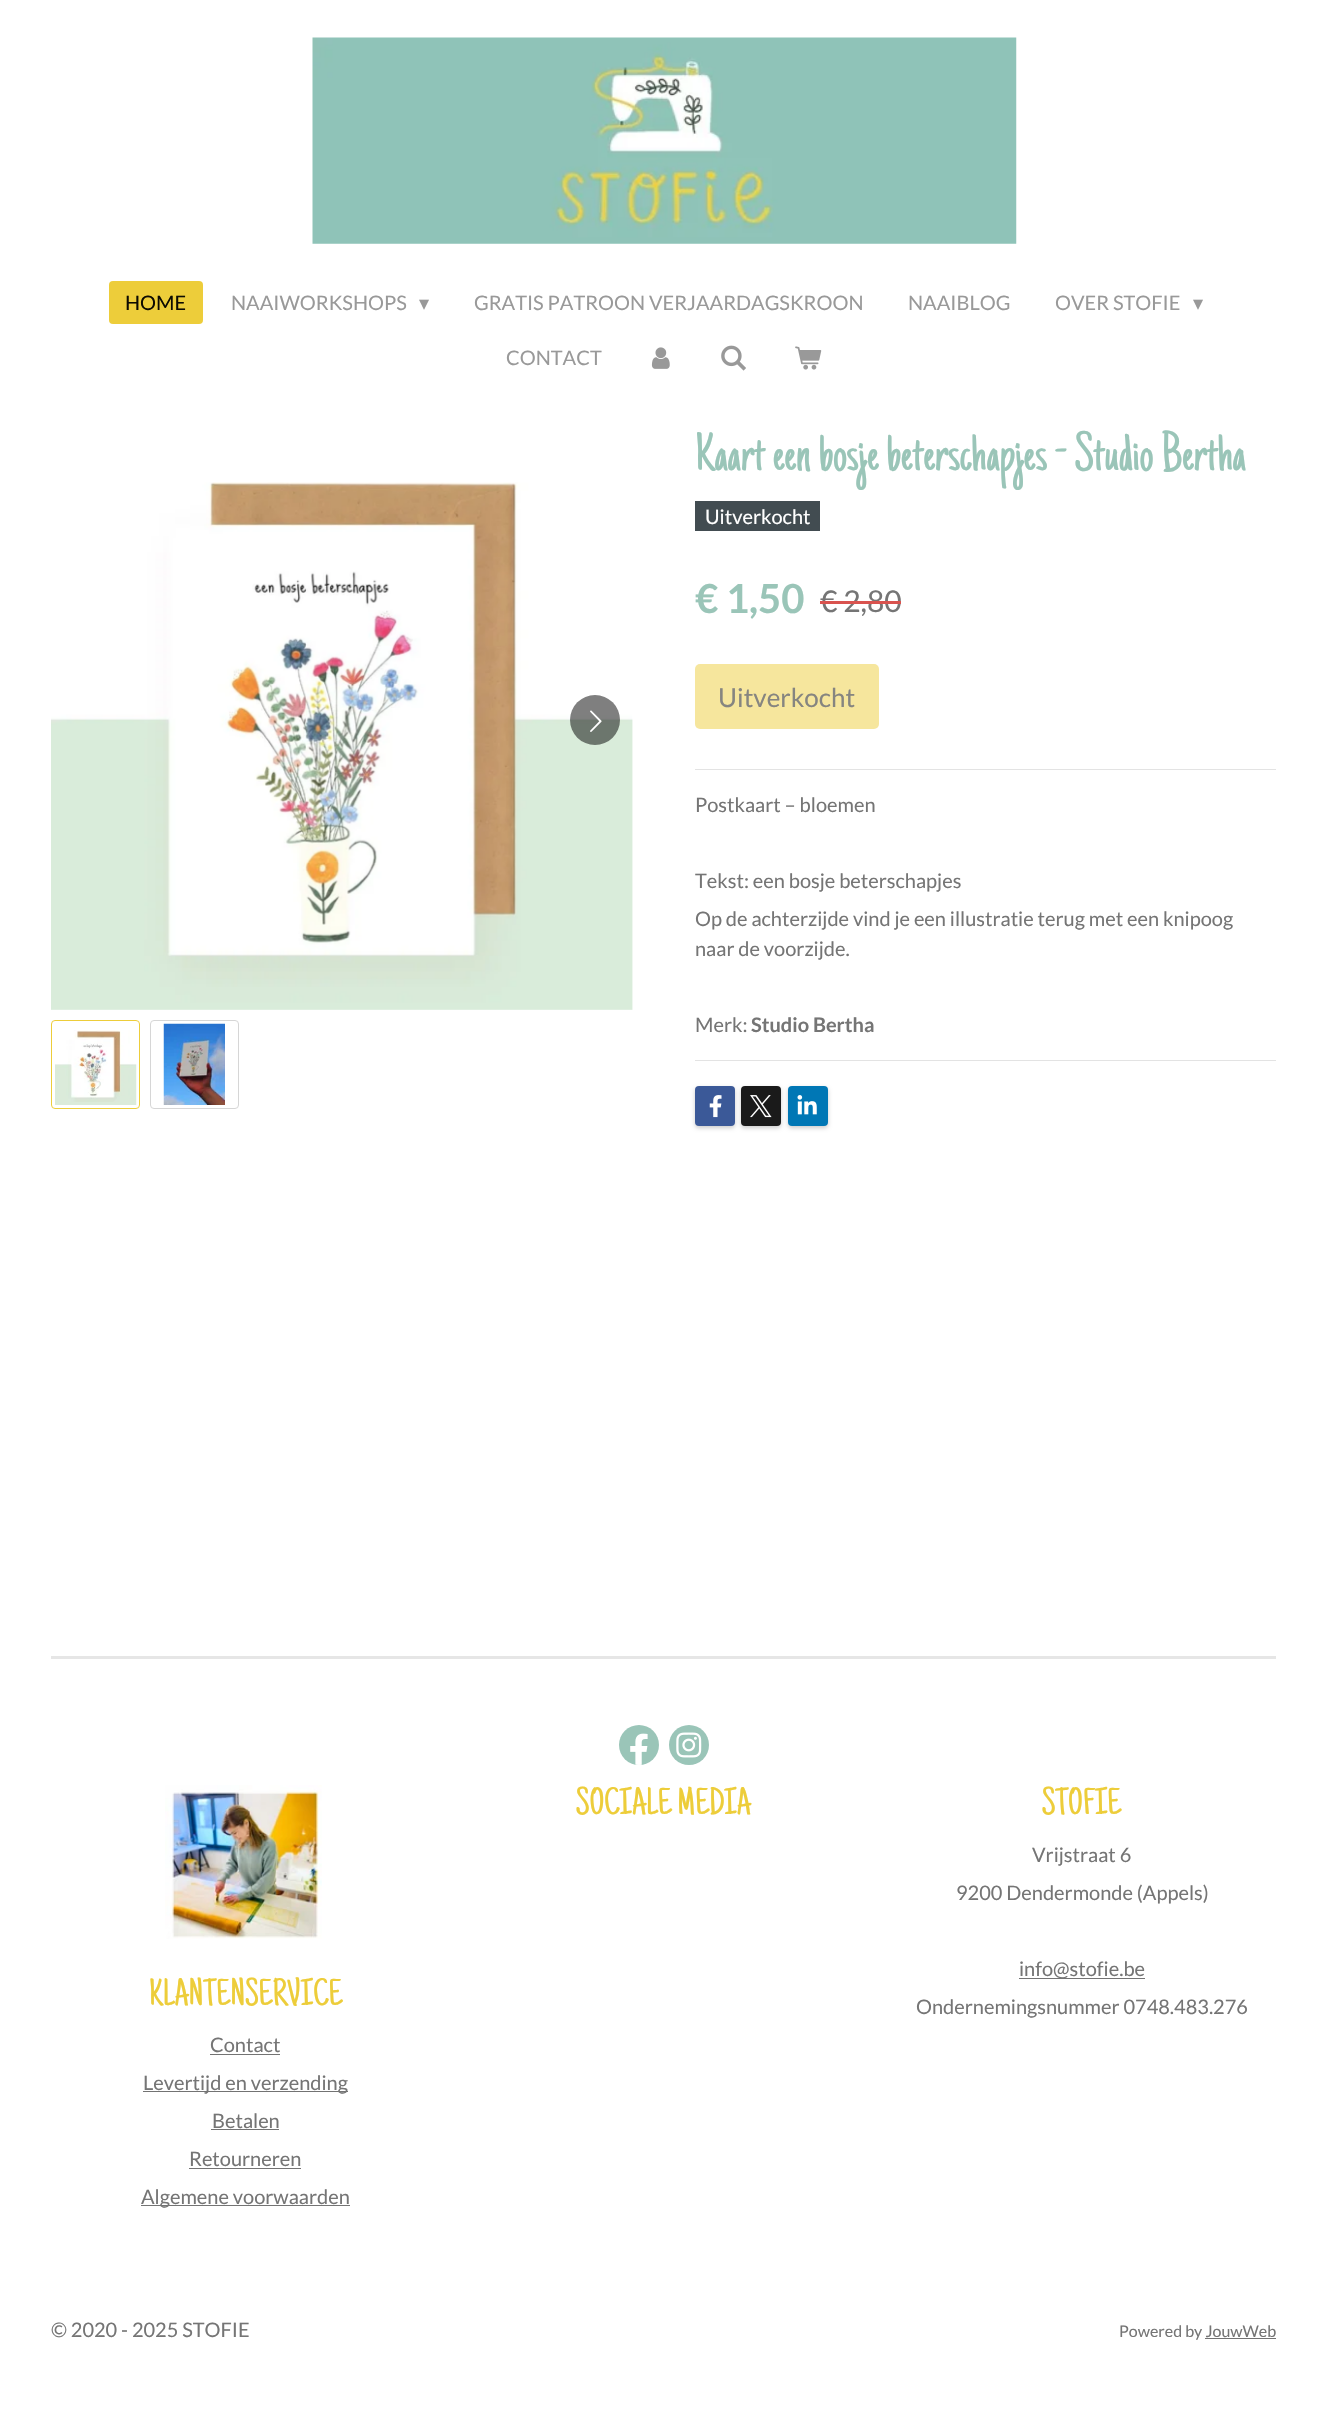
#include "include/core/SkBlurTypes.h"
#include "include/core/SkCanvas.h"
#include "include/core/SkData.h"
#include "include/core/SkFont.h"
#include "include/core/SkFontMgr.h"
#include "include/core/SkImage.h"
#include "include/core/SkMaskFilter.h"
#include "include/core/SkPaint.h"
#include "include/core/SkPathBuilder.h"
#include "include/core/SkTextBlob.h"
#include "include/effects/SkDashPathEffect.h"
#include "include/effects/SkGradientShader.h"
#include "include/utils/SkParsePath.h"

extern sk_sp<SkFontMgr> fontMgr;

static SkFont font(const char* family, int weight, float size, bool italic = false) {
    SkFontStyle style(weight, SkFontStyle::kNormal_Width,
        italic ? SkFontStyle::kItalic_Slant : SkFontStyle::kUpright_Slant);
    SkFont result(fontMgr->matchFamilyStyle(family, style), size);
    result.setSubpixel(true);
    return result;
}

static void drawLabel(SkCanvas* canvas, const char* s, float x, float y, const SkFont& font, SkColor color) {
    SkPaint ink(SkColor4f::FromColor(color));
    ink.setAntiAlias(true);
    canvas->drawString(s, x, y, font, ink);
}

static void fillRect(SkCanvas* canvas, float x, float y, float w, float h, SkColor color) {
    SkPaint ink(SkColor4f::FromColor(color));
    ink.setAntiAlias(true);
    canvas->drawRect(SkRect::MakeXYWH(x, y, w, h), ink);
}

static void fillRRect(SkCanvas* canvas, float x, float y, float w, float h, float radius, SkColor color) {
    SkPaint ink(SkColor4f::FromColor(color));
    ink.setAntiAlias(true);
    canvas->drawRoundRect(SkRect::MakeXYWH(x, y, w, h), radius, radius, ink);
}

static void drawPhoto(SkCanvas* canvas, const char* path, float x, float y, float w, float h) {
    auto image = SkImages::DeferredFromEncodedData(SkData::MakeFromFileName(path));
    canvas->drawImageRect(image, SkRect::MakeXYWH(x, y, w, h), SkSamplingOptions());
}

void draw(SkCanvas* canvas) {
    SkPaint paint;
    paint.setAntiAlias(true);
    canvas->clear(0xFFFFFFFF);
    drawPhoto(canvas, "assets/img1.png", 312, 37, 705, 207);
    fillRRect(canvas, 109, 281, 94, 43, 4, 0xFFEDCD3A);
    SkFont font1 = font("Lato", 400, 20);
    drawLabel(canvas, "HOME", 125, 310, font1, 0xFF0D0B01);
    drawLabel(canvas, "NAAIWORKSHOPS", 231, 310, font1, 0xFF999999);
    SkFont font2 = font("DejaVu Sans", 400, 20);
    drawLabel(canvas, "▾", 419, 310, font2, 0xFF999999);
    drawLabel(canvas, "GRATIS PATROON VERJAARDAGSKROON", 474, 310, font1, 0xFF999999);
    drawLabel(canvas, "NAAIBLOG", 908, 310, font1, 0xFF999999);
    drawLabel(canvas, "OVER STOFIE", 1055, 310, font1, 0xFF999999);
    drawLabel(canvas, "▾", 1193, 310, font2, 0xFF999999);
    drawLabel(canvas, "CONTACT", 506, 365, font1, 0xFF999999);
    drawPhoto(canvas, "assets/img2.png", 651, 347, 19, 22);
    drawPhoto(canvas, "assets/img3.png", 721, 345, 25, 26);
    drawPhoto(canvas, "assets/img4.png", 795, 346, 27, 24);
    drawPhoto(canvas, "assets/img5.png", 51, 482, 582, 528);
    paint.setColor(0x80000000);
    canvas->drawCircle(595, 720, 25, paint);
    drawPhoto(canvas, "assets/img6.png", 590, 710, 12, 22);
    paint.setStroke(true);
    paint.setStrokeWidth(1);
    paint.setColor(0xFFEDCD3A);
    canvas->drawRoundRect(SkRect::MakeXYWH(51.5f, 1020.5f, 88, 88), 3.5f, 3.5f, paint);
    drawPhoto(canvas, "assets/img7.png", 55, 1030, 82, 75);
    paint.setColor(0xFFD6D6D6);
    canvas->drawRoundRect(SkRect::MakeXYWH(150.5f, 1020.5f, 88, 88), 3.5f, 3.5f, paint);
    drawPhoto(canvas, "assets/img8.png", 163, 1023, 62, 82);
    SkFont font3 = font("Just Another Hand", 400, 55);
    drawLabel(canvas, "Kaart een bosje beterschapjes - Studio Bertha", 695, 470, font3, 0xFF9AC5B8);
    fillRect(canvas, 695, 501, 125, 30, 0xFF424C51);
    drawLabel(canvas, "Uitverkocht", 705, 524, font1, 0xFFFFFFFF);
    SkFont font4 = font("Lato", 700, 40);
    drawLabel(canvas, "€ 1,50", 695, 613, font4, 0xFF9AC5B8);
    SkFont font5 = font("Lato", 400, 30);
    drawLabel(canvas, "€ 2,80", 820, 612, font5, 0xFF757575);
    fillRect(canvas, 820, 601, 81, 3, 0xFFD9534F);
    fillRRect(canvas, 695, 664, 184, 65, 5, 0xFFF6E69D);
    SkFont font6 = font("Lato", 400, 26);
    drawLabel(canvas, "Uitverkocht", 718, 707, font6, 0xFF868580);
    fillRect(canvas, 695, 769, 581, 1, 0xFFE3E3E3);
    drawLabel(canvas, "Postkaart – bloemen", 695, 812, font1, 0xFF757575);
    drawLabel(canvas, "Tekst: een bosje beterschapjes", 695, 888, font1, 0xFF757575);
    drawLabel(canvas, "Op de achterzijde vind je een illustratie terug met een knipoog", 695, 926, font1, 0xFF757575);
    drawLabel(canvas, "naar de voorzijde.", 695, 956, font1, 0xFF757575);
    drawLabel(canvas, "Merk:", 695, 1032, font1, 0xFF757575);
    SkFont font7 = font("Lato", 700, 20);
    drawLabel(canvas, "Studio Bertha", 751, 1032, font7, 0xFF757575);
    fillRect(canvas, 695, 1060, 581, 1, 0xFFE3E3E3);
    paint.setStroke(false);
    paint.setColor(0x33000000);
    paint.setMaskFilter(SkMaskFilter::MakeBlur(kNormal_SkBlurStyle, 2));
    canvas->drawRoundRect(SkRect::MakeXYWH(695, 1088, 40, 40), 4, 4, paint);
    paint.setMaskFilter(nullptr);
    fillRRect(canvas, 695, 1086, 40, 40, 4, 0xFF3B5998);
    drawPhoto(canvas, "assets/img9.png", 709, 1095, 13, 23);
    paint.setMaskFilter(SkMaskFilter::MakeBlur(kNormal_SkBlurStyle, 2));
    canvas->drawRoundRect(SkRect::MakeXYWH(741, 1088, 40, 40), 4, 4, paint);
    paint.setMaskFilter(nullptr);
    fillRRect(canvas, 741, 1086, 40, 40, 4, 0xFF1A1A1A);
    drawPhoto(canvas, "assets/img10.png", 750, 1095, 22, 23);
    paint.setMaskFilter(SkMaskFilter::MakeBlur(kNormal_SkBlurStyle, 2));
    canvas->drawRoundRect(SkRect::MakeXYWH(788, 1088, 40, 40), 4, 4, paint);
    paint.setMaskFilter(nullptr);
    fillRRect(canvas, 788, 1086, 40, 40, 4, 0xFF0077B5);
    drawPhoto(canvas, "assets/img11.png", 797, 1095, 20, 20);
    fillRect(canvas, 51, 1656, 1225, 3, 0xFFE6E6E6);
    paint.setColor(0xFF9AC5B8);
    canvas->drawCircle(639, 1745, 20, paint);
    drawPhoto(canvas, "assets/img12.png", 630, 1733, 18, 32);
    canvas->drawCircle(689, 1745, 20, paint);
    drawPhoto(canvas, "assets/img13.png", 676, 1732, 26, 26);
    SkFont font8 = font("Just Another Hand", 400, 38.5f);
    drawLabel(canvas, "SOCIALE MEDIA", 576, 1814, font8, 0xFFEDCD3A);
    drawLabel(canvas, "STOFIE", 1042, 1814, font8, 0xFFEDCD3A);
    drawLabel(canvas, "Vrijstraat 6", 1032, 1862, font1, 0xFF757575);
    drawLabel(canvas, "9200 Dendermonde (Appels)", 956, 1900, font1, 0xFF757575);
    fillRect(canvas, 1019, 1978, 126, 1, 0xFF737373);
    drawLabel(canvas, "info@stofie.be", 1019, 1976, font1, 0xFF757575);
    drawLabel(canvas, "Ondernemingsnummer 0748.483.276", 916, 2014, font1, 0xFF757575);
    drawPhoto(canvas, "assets/img14.png", 165, 1785, 157, 154);
    drawLabel(canvas, "KLANTENSERVICE", 149, 2005, font8, 0xFFEDCD3A);
    drawLabel(canvas, "Contact", 210, 2052, font1, 0xFF757575);
    fillRect(canvas, 210, 2054, 70, 1, 0xFF737373);
    fillRect(canvas, 143, 2091, 205, 1, 0xFF737373);
    drawLabel(canvas, "Levertijd en verzending", 143, 2090, font1, 0xFF757575);
    drawLabel(canvas, "Betalen", 212, 2128, font1, 0xFF757575);
    fillRect(canvas, 211, 2129, 68, 1, 0xFF737373);
    drawLabel(canvas, "Retourneren", 189, 2166, font1, 0xFF757575);
    fillRect(canvas, 189, 2168, 112, 1, 0xFF737373);
    fillRect(canvas, 141, 2205, 209, 1, 0xFF737373);
    drawLabel(canvas, "Algemene voorwaarden", 141, 2204, font1, 0xFF757575);
    drawLabel(canvas, "© 2020 - 2025 STOFIE", 51, 2337, font1, 0xFF757575);
    SkFont font9 = font("Lato", 400, 16);
    drawLabel(canvas, "Powered by JouwWeb", 1119, 2337, font9, 0xFF757575);
    fillRect(canvas, 1205, 2338, 71, 1, 0xFF737373);
}
